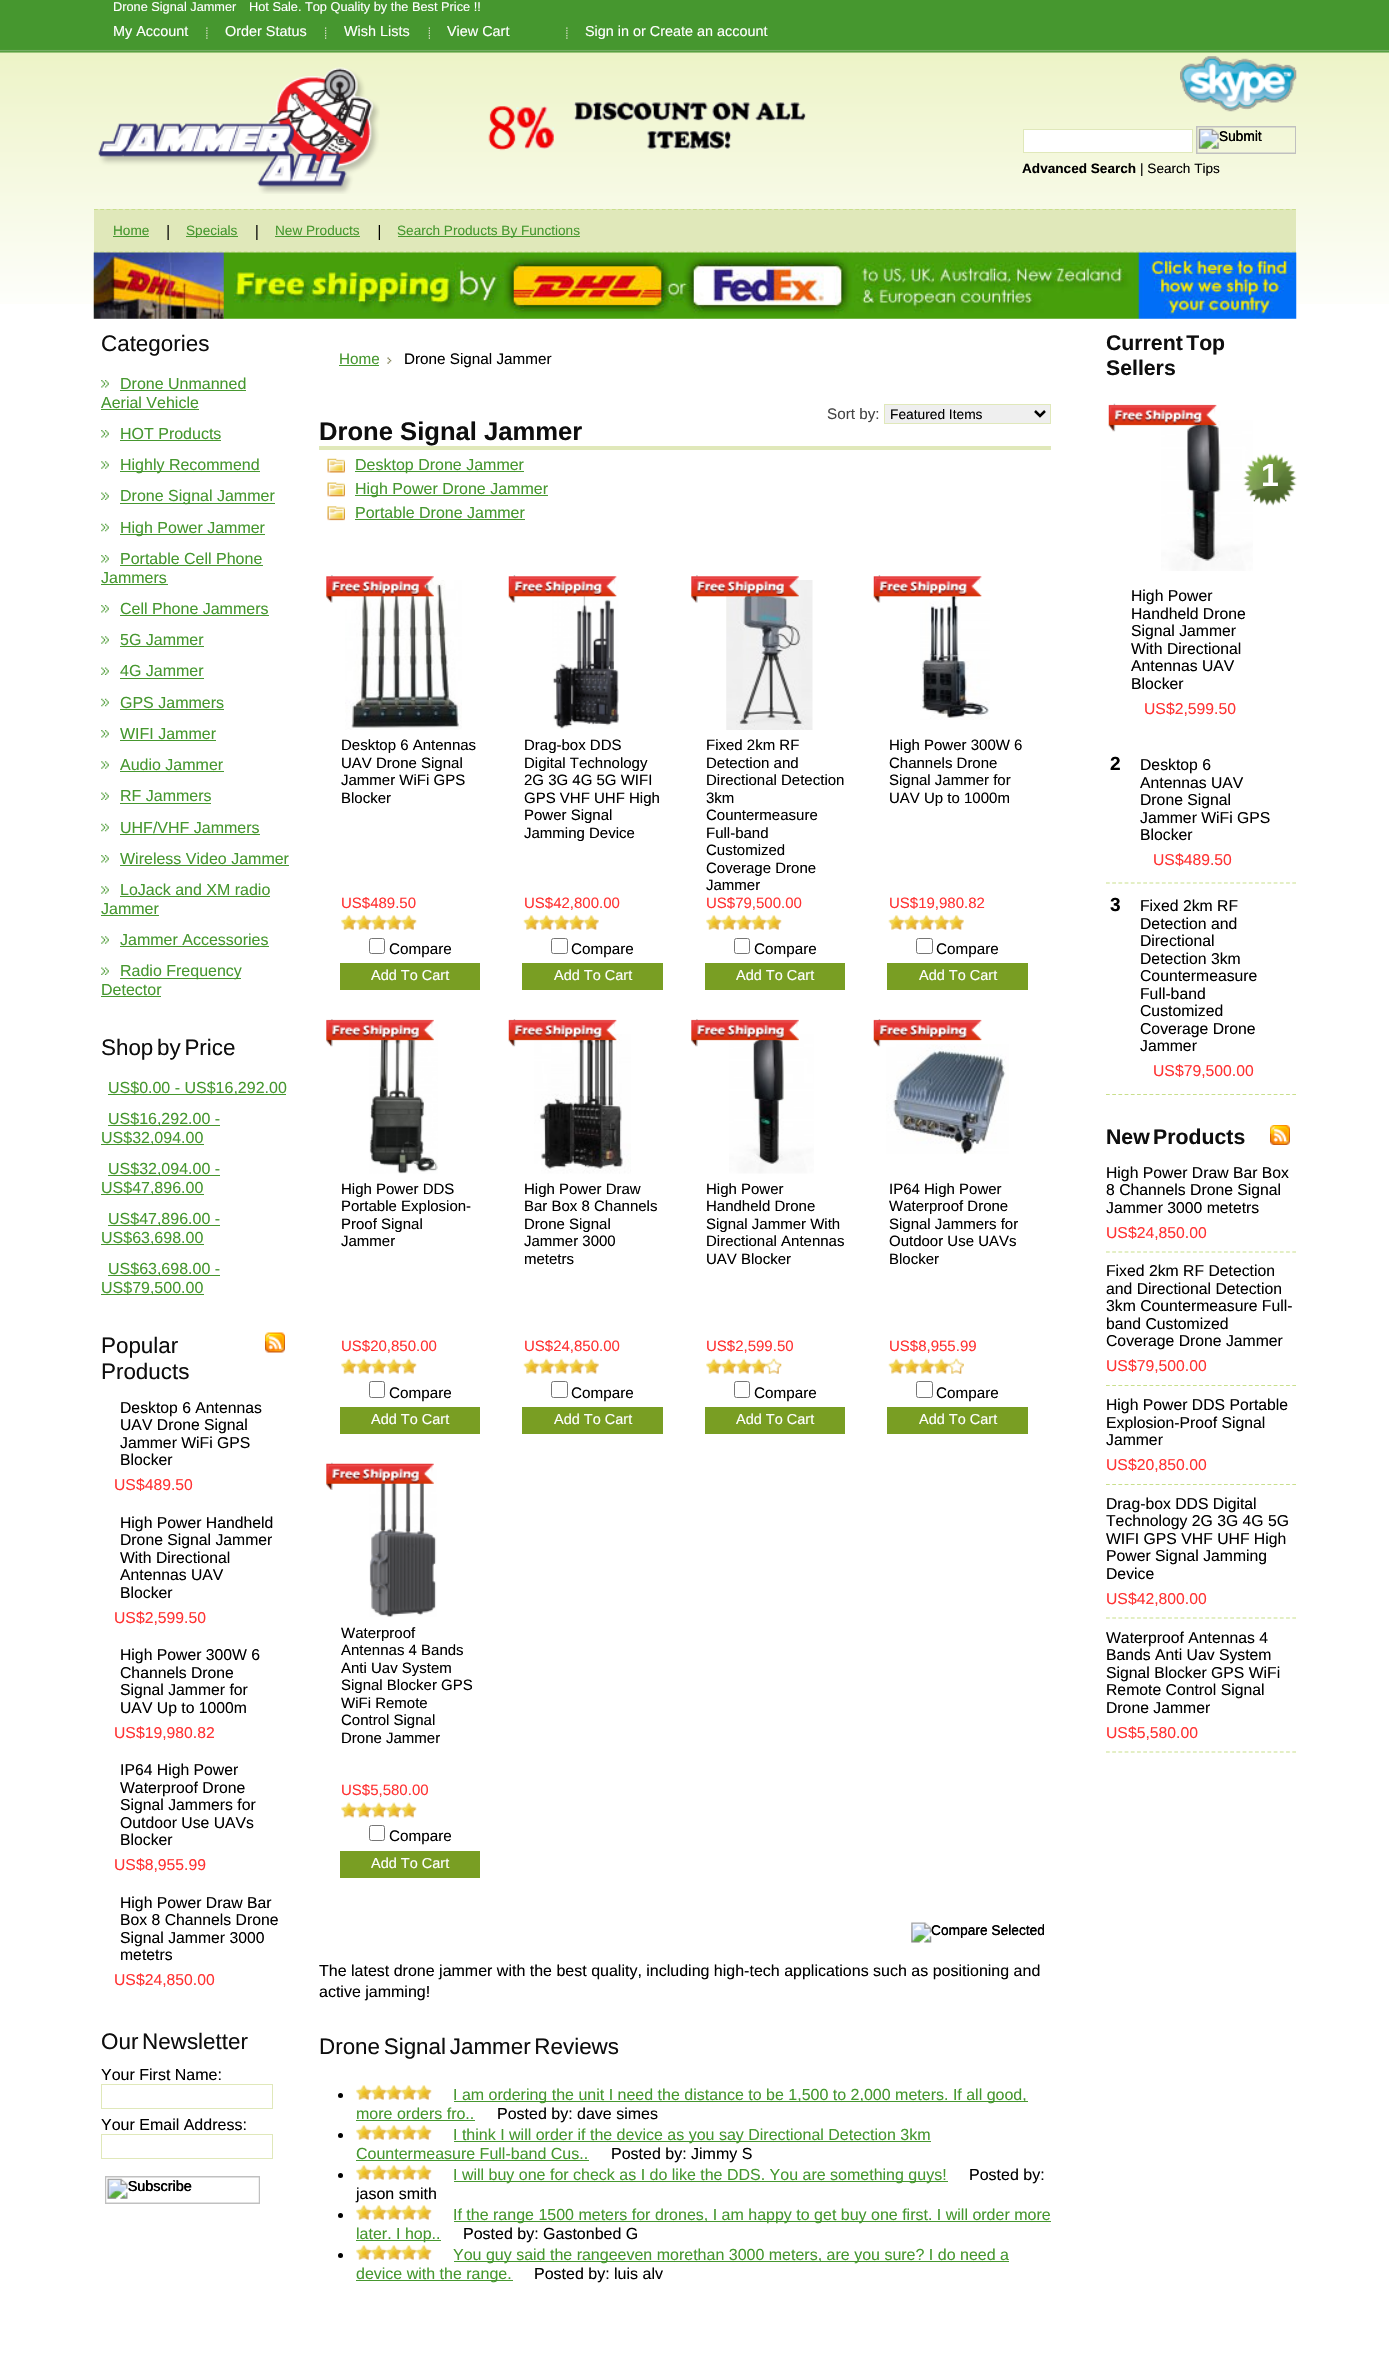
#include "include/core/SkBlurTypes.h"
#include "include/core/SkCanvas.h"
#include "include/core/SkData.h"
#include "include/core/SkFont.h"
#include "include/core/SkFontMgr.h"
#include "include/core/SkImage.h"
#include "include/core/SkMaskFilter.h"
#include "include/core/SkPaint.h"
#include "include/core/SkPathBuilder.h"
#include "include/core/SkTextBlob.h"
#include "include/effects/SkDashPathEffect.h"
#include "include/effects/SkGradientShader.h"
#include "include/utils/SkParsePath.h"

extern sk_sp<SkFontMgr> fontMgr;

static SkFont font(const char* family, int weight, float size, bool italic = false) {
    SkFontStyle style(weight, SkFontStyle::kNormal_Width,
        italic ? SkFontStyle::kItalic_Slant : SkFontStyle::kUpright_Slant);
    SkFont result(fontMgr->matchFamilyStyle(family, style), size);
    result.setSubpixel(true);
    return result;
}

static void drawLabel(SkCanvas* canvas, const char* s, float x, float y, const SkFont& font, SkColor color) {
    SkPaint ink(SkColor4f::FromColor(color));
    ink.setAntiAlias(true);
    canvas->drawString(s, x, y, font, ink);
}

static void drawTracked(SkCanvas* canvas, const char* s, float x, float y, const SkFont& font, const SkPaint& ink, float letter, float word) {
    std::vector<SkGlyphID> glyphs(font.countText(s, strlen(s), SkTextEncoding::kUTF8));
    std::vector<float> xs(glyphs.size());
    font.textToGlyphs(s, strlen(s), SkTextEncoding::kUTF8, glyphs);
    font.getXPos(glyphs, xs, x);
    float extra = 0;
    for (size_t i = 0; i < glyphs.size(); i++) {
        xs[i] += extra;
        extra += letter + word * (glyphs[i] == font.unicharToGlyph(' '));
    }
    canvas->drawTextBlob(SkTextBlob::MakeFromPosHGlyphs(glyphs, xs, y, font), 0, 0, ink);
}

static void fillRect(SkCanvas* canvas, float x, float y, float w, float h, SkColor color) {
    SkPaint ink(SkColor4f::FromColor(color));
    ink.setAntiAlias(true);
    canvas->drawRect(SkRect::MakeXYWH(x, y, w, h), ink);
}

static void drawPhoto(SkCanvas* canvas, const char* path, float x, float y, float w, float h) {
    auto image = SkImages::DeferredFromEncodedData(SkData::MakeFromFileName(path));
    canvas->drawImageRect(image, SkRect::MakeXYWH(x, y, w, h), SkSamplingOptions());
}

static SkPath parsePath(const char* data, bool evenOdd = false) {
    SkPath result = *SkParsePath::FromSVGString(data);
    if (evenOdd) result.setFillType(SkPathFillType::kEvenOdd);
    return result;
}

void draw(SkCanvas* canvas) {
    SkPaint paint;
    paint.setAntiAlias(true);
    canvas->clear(0xFFFFFFFF);
    drawPhoto(canvas, "assets/img1.png", 0, 0, 1389, 304);
    SkFont font1 = font("Liberation Sans", 400, 12.75f);
    drawLabel(canvas, "Drone Signal Jammer", 113, 11, font1, 0xFFFFFFFF);
    drawLabel(canvas, "Hot Sale. Top Quality by the Best Price !!", 249, 11, font1, 0xFFFFFFFF);
    SkFont font2 = font("Liberation Sans", 400, 14.4f);
    drawLabel(canvas, "My Account", 113, 36, font2, 0xFFFFFFFF);
    drawPhoto(canvas, "assets/img2.png", 206, 27, 2, 12);
    drawLabel(canvas, "Order Status", 225, 36, font2, 0xFFFFFFFF);
    drawPhoto(canvas, "assets/img3.png", 325, 27, 2, 12);
    drawLabel(canvas, "Wish Lists", 344, 36, font2, 0xFFFFFFFF);
    drawPhoto(canvas, "assets/img4.png", 428, 27, 2, 12);
    drawLabel(canvas, "View Cart", 447, 36, font2, 0xFFFFFFFF);
    drawPhoto(canvas, "assets/img2.png", 566, 27, 2, 12);
    drawLabel(canvas, "Sign in or Create an account", 585, 36, font2, 0xFFFFFFFF);
    drawPhoto(canvas, "assets/img5.png", 98, 67, 282, 127);
    drawPhoto(canvas, "assets/img6.png", 488, 102, 318, 49);
    drawPhoto(canvas, "assets/img7.png", 1180, 56, 117, 56);
    paint.setColor(0xFFFFFFFF);
    canvas->drawRect(SkRect::MakeXYWH(1023.5f, 129.5f, 169, 23), paint);
    paint.setStroke(true);
    paint.setStrokeWidth(1);
    paint.setColor(0xFFE0E8BA);
    canvas->drawRect(SkRect::MakeXYWH(1023.5f, 129.5f, 169, 23), paint);
    drawPhoto(canvas, "assets/img8.png", 1197, 127, 98, 26);
    paint.setColor(0xFFC0C0C0);
    canvas->drawRect(SkRect::MakeXYWH(1196.5f, 126.5f, 99, 27), paint);
    SkFont font3 = font("Liberation Sans", 400, 13.75f);
    drawLabel(canvas, "Submit", 1219, 141, font3, 0xFF000000);
    SkFont font4 = font("Liberation Sans", 700, 13.6f);
    drawLabel(canvas, "Advanced Search", 1022, 173, font4, 0xFF000000);
    SkFont font5 = font("Liberation Sans", 400, 13.6f);
    drawLabel(canvas, "| Search Tips", 1140, 173, font5, 0xFF000000);
    fillRect(canvas, 94, 209, 1202, 44, 0xFFE0E8BA);
    paint.setStrokeWidth(1.2f);
    paint.setColor(0xFFC9DF8B);
    paint.setPathEffect(SkDashPathEffect::Make({{3.75f, 2.49f}}, 0));
    canvas->drawPath(parsePath("M94 209.5H1296"), paint);
    paint.setPathEffect(nullptr);
    paint.setPathEffect(SkDashPathEffect::Make({{3.75f, 2.49f}}, 0));
    canvas->drawPath(parsePath("M94 252H1296"), paint);
    paint.setPathEffect(nullptr);
    drawLabel(canvas, "Home", 113, 235, font5, 0xFF46972F);
    fillRect(canvas, 113, 236, 36, 1, 0xFF46972F);
    drawPhoto(canvas, "assets/img9.png", 167, 225, 2, 15);
    fillRect(canvas, 186, 236, 52, 1, 0xFF46972F);
    drawLabel(canvas, "Specials", 186, 235, font5, 0xFF46972F);
    drawPhoto(canvas, "assets/img10.png", 256, 225, 2, 15);
    drawLabel(canvas, "New Products", 275, 235, font5, 0xFF46972F);
    fillRect(canvas, 275, 236, 85, 1, 0xFF46972F);
    drawPhoto(canvas, "assets/img11.png", 378, 225, 2, 15);
    fillRect(canvas, 398, 236, 182, 1, 0xFF46972F);
    drawLabel(canvas, "Search Products By Functions", 397, 235, font5, 0xFF46972F);
    drawPhoto(canvas, "assets/img12.png", 93, 252, 1204, 67);
    SkFont font6 = font("Liberation Sans", 400, 22.4f);
    drawLabel(canvas, "Categories", 101, 351, font6, 0xFF0E0E0E);
    drawPhoto(canvas, "assets/img13.png", 101, 380, 8, 8);
    SkFont font7 = font("Liberation Sans", 400, 16);
    drawLabel(canvas, "Drone Unmanned", 120, 389, font7, 0xFF46972F);
    fillRect(canvas, 120, 390, 126, 1, 0xFF46972F);
    drawLabel(canvas, "Aerial Vehicle", 101, 408, font7, 0xFF46972F);
    fillRect(canvas, 101, 409, 98, 1, 0xFF46972F);
    drawPhoto(canvas, "assets/img13.png", 101, 430, 8, 8);
    drawLabel(canvas, "HOT Products", 120, 439, font7, 0xFF46972F);
    fillRect(canvas, 120, 440, 101, 1, 0xFF46972F);
    drawPhoto(canvas, "assets/img14.png", 101, 461, 8, 8);
    fillRect(canvas, 120, 471, 140, 1, 0xFF46972F);
    drawLabel(canvas, "Highly Recommend", 120, 470, font7, 0xFF46972F);
    drawPhoto(canvas, "assets/img15.png", 101, 492, 8, 8);
    fillRect(canvas, 120, 503, 155, 1, 0xFF46972F);
    drawLabel(canvas, "Drone Signal Jammer", 120, 501, font7, 0xFF46972F);
    drawPhoto(canvas, "assets/img16.png", 101, 523, 8, 9);
    fillRect(canvas, 120, 534, 145, 1, 0xFF46972F);
    drawLabel(canvas, "High Power Jammer", 120, 533, font7, 0xFF46972F);
    drawPhoto(canvas, "assets/img13.png", 101, 555, 8, 8);
    drawLabel(canvas, "Portable Cell Phone", 120, 564, font7, 0xFF46972F);
    fillRect(canvas, 120, 565, 143, 1, 0xFF46972F);
    drawLabel(canvas, "Jammers", 101, 583, font7, 0xFF46972F);
    fillRect(canvas, 101, 584, 67, 1, 0xFF46972F);
    drawPhoto(canvas, "assets/img13.png", 101, 605, 8, 8);
    drawLabel(canvas, "Cell Phone Jammers", 120, 614, font7, 0xFF46972F);
    fillRect(canvas, 120, 615, 149, 1, 0xFF46972F);
    drawPhoto(canvas, "assets/img14.png", 101, 636, 8, 8);
    drawLabel(canvas, "5G Jammer", 120, 645, font7, 0xFF46972F);
    fillRect(canvas, 120, 646, 84, 1, 0xFF46972F);
    drawPhoto(canvas, "assets/img15.png", 101, 667, 8, 8);
    drawLabel(canvas, "4G Jammer", 120, 676, font7, 0xFF46972F);
    fillRect(canvas, 120, 678, 84, 1, 0xFF46972F);
    drawPhoto(canvas, "assets/img16.png", 101, 698, 8, 9);
    drawLabel(canvas, "GPS Jammers", 120, 708, font7, 0xFF46972F);
    fillRect(canvas, 120, 709, 104, 1, 0xFF46972F);
    drawPhoto(canvas, "assets/img13.png", 101, 730, 8, 8);
    drawLabel(canvas, "WIFI Jammer", 120, 739, font7, 0xFF46972F);
    fillRect(canvas, 120, 740, 96, 1, 0xFF46972F);
    drawPhoto(canvas, "assets/img14.png", 101, 761, 8, 8);
    drawLabel(canvas, "Audio Jammer", 120, 770, font7, 0xFF46972F);
    fillRect(canvas, 120, 771, 104, 1, 0xFF46972F);
    drawPhoto(canvas, "assets/img15.png", 101, 792, 8, 8);
    drawLabel(canvas, "RF Jammers", 120, 801, font7, 0xFF46972F);
    fillRect(canvas, 120, 803, 91, 1, 0xFF46972F);
    drawPhoto(canvas, "assets/img16.png", 101, 823, 8, 9);
    drawLabel(canvas, "UHF/VHF Jammers", 120, 833, font7, 0xFF46972F);
    fillRect(canvas, 120, 834, 140, 1, 0xFF46972F);
    drawPhoto(canvas, "assets/img13.png", 101, 855, 8, 8);
    drawLabel(canvas, "Wireless Video Jammer", 120, 864, font7, 0xFF46972F);
    fillRect(canvas, 120, 865, 169, 1, 0xFF46972F);
    drawPhoto(canvas, "assets/img14.png", 101, 886, 8, 8);
    drawLabel(canvas, "LoJack and XM radio", 120, 895, font7, 0xFF46972F);
    fillRect(canvas, 120, 896, 150, 1, 0xFF46972F);
    drawLabel(canvas, "Jammer", 101, 914, font7, 0xFF46972F);
    fillRect(canvas, 101, 915, 58, 1, 0xFF46972F);
    drawPhoto(canvas, "assets/img14.png", 101, 936, 8, 8);
    drawLabel(canvas, "Jammer Accessories", 120, 945, font7, 0xFF46972F);
    fillRect(canvas, 120, 946, 149, 1, 0xFF46972F);
    drawPhoto(canvas, "assets/img15.png", 101, 967, 8, 8);
    fillRect(canvas, 120, 978, 121, 1, 0xFF46972F);
    drawLabel(canvas, "Radio Frequency", 120, 976, font7, 0xFF46972F);
    drawLabel(canvas, "Detector", 101, 995, font7, 0xFF46972F);
    fillRect(canvas, 101, 996, 60, 1, 0xFF46972F);
    paint.setStroke(false);
    paint.setColor(0xFF0E0E0E);
    drawTracked(canvas, "Shop by Price", 101, 1055, font6, paint, 0, -2.5f);
    fillRect(canvas, 108, 1094, 178, 1, 0xFF46972F);
    drawLabel(canvas, "US$0.00 - US$16,292.00", 108, 1093, font7, 0xFF46972F);
    fillRect(canvas, 108, 1125, 112, 1, 0xFF46972F);
    drawLabel(canvas, "US$16,292.00 -", 108, 1124, font7, 0xFF46972F);
    fillRect(canvas, 101, 1144, 103, 1, 0xFF46972F);
    drawLabel(canvas, "US$32,094.00", 101, 1143, font7, 0xFF46972F);
    fillRect(canvas, 108, 1175, 112, 1, 0xFF46972F);
    drawLabel(canvas, "US$32,094.00 -", 108, 1174, font7, 0xFF46972F);
    fillRect(canvas, 101, 1194, 103, 1, 0xFF46972F);
    drawLabel(canvas, "US$47,896.00", 101, 1193, font7, 0xFF46972F);
    fillRect(canvas, 108, 1225, 112, 1, 0xFF46972F);
    drawLabel(canvas, "US$47,896.00 -", 108, 1224, font7, 0xFF46972F);
    fillRect(canvas, 101, 1244, 103, 1, 0xFF46972F);
    drawLabel(canvas, "US$63,698.00", 101, 1243, font7, 0xFF46972F);
    fillRect(canvas, 108, 1275, 112, 1, 0xFF46972F);
    drawLabel(canvas, "US$63,698.00 -", 108, 1274, font7, 0xFF46972F);
    fillRect(canvas, 101, 1294, 103, 1, 0xFF46972F);
    drawLabel(canvas, "US$79,500.00", 101, 1293, font7, 0xFF46972F);
    drawLabel(canvas, "Popular", 101, 1353, font6, 0xFF0E0E0E);
    drawPhoto(canvas, "assets/img17.png", 265, 1332, 20, 21);
    drawLabel(canvas, "Products", 101, 1379, font6, 0xFF0E0E0E);
    SkFont font8 = font("Liberation Sans", 400, 15.75f);
    drawLabel(canvas, "Desktop 6 Antennas", 120, 1413, font8, 0xFF000000);
    drawLabel(canvas, "UAV Drone Signal", 120, 1430, font8, 0xFF000000);
    drawLabel(canvas, "Jammer WiFi GPS", 120, 1448, font8, 0xFF000000);
    drawLabel(canvas, "Blocker", 120, 1465, font8, 0xFF000000);
    drawLabel(canvas, "US$489.50", 114, 1490, font8, 0xFFFF3333);
    drawLabel(canvas, "High Power Handheld", 120, 1528, font8, 0xFF000000);
    drawLabel(canvas, "Drone Signal Jammer", 120, 1545, font8, 0xFF000000);
    drawLabel(canvas, "With Directional", 120, 1563, font8, 0xFF000000);
    drawLabel(canvas, "Antennas UAV", 120, 1580, font8, 0xFF000000);
    drawLabel(canvas, "Blocker", 120, 1598, font8, 0xFF000000);
    drawLabel(canvas, "US$2,599.50", 114, 1623, font8, 0xFFFF3333);
    drawLabel(canvas, "High Power 300W 6", 120, 1660, font8, 0xFF000000);
    drawLabel(canvas, "Channels Drone", 120, 1678, font8, 0xFF000000);
    drawLabel(canvas, "Signal Jammer for", 120, 1695, font8, 0xFF000000);
    drawLabel(canvas, "UAV Up to 1000m", 120, 1713, font8, 0xFF000000);
    drawLabel(canvas, "US$19,980.82", 114, 1738, font8, 0xFFFF3333);
    drawLabel(canvas, "IP64 High Power", 120, 1775, font8, 0xFF000000);
    drawLabel(canvas, "Waterproof Drone", 120, 1793, font8, 0xFF000000);
    drawLabel(canvas, "Signal Jammers for", 120, 1810, font8, 0xFF000000);
    drawLabel(canvas, "Outdoor Use UAVs", 120, 1828, font8, 0xFF000000);
    drawLabel(canvas, "Blocker", 120, 1845, font8, 0xFF000000);
    drawLabel(canvas, "US$8,955.99", 114, 1870, font8, 0xFFFF3333);
    drawLabel(canvas, "High Power Draw Bar", 120, 1908, font8, 0xFF000000);
    drawLabel(canvas, "Box 8 Channels Drone", 120, 1925, font8, 0xFF000000);
    drawLabel(canvas, "Signal Jammer 3000", 120, 1943, font8, 0xFF000000);
    drawLabel(canvas, "metetrs", 120, 1960, font8, 0xFF000000);
    drawLabel(canvas, "US$24,850.00", 114, 1985, font8, 0xFFFF3333);
    drawTracked(canvas, "Our Newsletter", 101, 2049, font6, paint, 0, -2.5f);
    drawLabel(canvas, "Your First Name:", 101, 2080, font7, 0xFF000000);
    paint.setStroke(true);
    paint.setStrokeWidth(1);
    paint.setColor(0xFFE0E8BA);
    canvas->drawRect(SkRect::MakeXYWH(101.5f, 2084.5f, 171, 24), paint);
    drawLabel(canvas, "Your Email Address:", 101, 2130, font7, 0xFF000000);
    canvas->drawRect(SkRect::MakeXYWH(101.5f, 2134.5f, 171, 24), paint);
    drawPhoto(canvas, "assets/img18.png", 106, 2177, 153, 26);
    paint.setColor(0xFFC0C0C0);
    canvas->drawRect(SkRect::MakeXYWH(105.5f, 2176.5f, 154, 27), paint);
    drawLabel(canvas, "Subscribe", 128, 2191, font2, 0xFF000000);
    SkFont font9 = font("Liberation Sans", 400, 15.25f);
    drawLabel(canvas, "Home", 339, 364, font9, 0xFF46972F);
    fillRect(canvas, 339, 365, 40, 1, 0xFF46972F);
    drawPhoto(canvas, "assets/img19.png", 387, 357, 5, 7);
    drawLabel(canvas, "Drone Signal Jammer", 404, 364, font9, 0xFF000000);
    drawLabel(canvas, "Sort by:", 827, 419, font9, 0xFF444444);
    paint.setStroke(false);
    paint.setColor(0xFFEFEFEF);
    canvas->drawRect(SkRect::MakeXYWH(884.5f, 404.5f, 166, 19), paint);
    paint.setStroke(true);
    paint.setColor(0xFFE0E8BA);
    canvas->drawRect(SkRect::MakeXYWH(884.5f, 404.5f, 166, 19), paint);
    paint.setStrokeWidth(2.5f);
    paint.setColor(0xFF000000);
    canvas->drawPath(parsePath("M1035 411L1040 416L1045 411"), paint);
    drawLabel(canvas, "Featured Items", 890, 419, font3, 0xFF000000);
    fillRect(canvas, 319, 446, 732, 4, 0xFFE0E8BA);
    SkFont font10 = font("Liberation Sans", 700, 25.6f);
    drawLabel(canvas, "Drone Signal Jammer", 319, 440, font10, 0xFF0E0E0E);
    drawPhoto(canvas, "assets/img20.png", 327, 458, 18, 15);
    fillRect(canvas, 355, 471, 169, 1, 0xFF46972F);
    drawLabel(canvas, "Desktop Drone Jammer", 355, 470, font7, 0xFF46972F);
    drawPhoto(canvas, "assets/img21.png", 327, 482, 18, 15);
    fillRect(canvas, 355, 495, 193, 1, 0xFF46972F);
    drawLabel(canvas, "High Power Drone Jammer", 355, 494, font7, 0xFF46972F);
    drawPhoto(canvas, "assets/img22.png", 327, 506, 18, 15);
    drawLabel(canvas, "Portable Drone Jammer", 355, 518, font7, 0xFF46972F);
    fillRect(canvas, 355, 519, 170, 1, 0xFF46972F);
    drawPhoto(canvas, "assets/img24.png", 345, 580, 117, 150);
    drawPhoto(canvas, "assets/img23.png", 326, 575, 108, 28);
    SkFont font11 = font("Liberation Sans", 400, 15);
    drawLabel(canvas, "Desktop 6 Antennas", 341, 750, font11, 0xFF000000);
    drawLabel(canvas, "UAV Drone Signal", 341, 768, font11, 0xFF000000);
    drawLabel(canvas, "Jammer WiFi GPS", 341, 785, font11, 0xFF000000);
    drawLabel(canvas, "Blocker", 341, 803, font11, 0xFF000000);
    drawLabel(canvas, "US$489.50", 341, 908, font11, 0xFFFF3333);
    drawPhoto(canvas, "assets/img25.png", 341, 915, 76, 15);
    paint.setStrokeWidth(1);
    paint.setColor(0xFF767676);
    canvas->drawRoundRect(SkRect::MakeXYWH(369.5f, 938.5f, 15, 15), 2, 2, paint);
    drawLabel(canvas, "Compare", 389, 954, font9, 0xFF000000);
    fillRect(canvas, 340, 963, 140, 27, 0xFF799E23);
    SkFont font12 = font("Liberation Sans", 400, 14.5f);
    drawLabel(canvas, "Add To Cart", 371, 980, font12, 0xFFFFFFFF);
    drawPhoto(canvas, "assets/img27.png", 552, 580, 67, 149);
    drawPhoto(canvas, "assets/img26.png", 508, 575, 109, 28);
    drawLabel(canvas, "Drag-box DDS", 524, 750, font11, 0xFF000000);
    drawLabel(canvas, "Digital Technology", 524, 768, font11, 0xFF000000);
    drawLabel(canvas, "2G 3G 4G 5G WIFI", 524, 785, font11, 0xFF000000);
    drawLabel(canvas, "GPS VHF UHF High", 524, 803, font11, 0xFF000000);
    drawLabel(canvas, "Power Signal", 524, 820, font11, 0xFF000000);
    drawLabel(canvas, "Jamming Device", 524, 838, font11, 0xFF000000);
    drawLabel(canvas, "US$42,800.00", 524, 908, font11, 0xFFFF3333);
    drawPhoto(canvas, "assets/img28.png", 523, 915, 76, 15);
    canvas->drawRoundRect(SkRect::MakeXYWH(551.5f, 938.5f, 16, 15), 2, 2, paint);
    drawLabel(canvas, "Compare", 571, 954, font9, 0xFF000000);
    fillRect(canvas, 522, 963, 141, 27, 0xFF799E23);
    drawLabel(canvas, "Add To Cart", 554, 980, font12, 0xFFFFFFFF);
    drawPhoto(canvas, "assets/img30.png", 726, 580, 87, 150);
    drawPhoto(canvas, "assets/img29.png", 691, 575, 108, 28);
    drawLabel(canvas, "Fixed 2km RF", 706, 750, font11, 0xFF000000);
    drawLabel(canvas, "Detection and", 706, 768, font11, 0xFF000000);
    drawLabel(canvas, "Directional Detection", 706, 785, font11, 0xFF000000);
    drawLabel(canvas, "3km", 706, 803, font11, 0xFF000000);
    drawLabel(canvas, "Countermeasure", 706, 820, font11, 0xFF000000);
    drawLabel(canvas, "Full-band", 706, 838, font11, 0xFF000000);
    drawLabel(canvas, "Customized", 706, 855, font11, 0xFF000000);
    drawLabel(canvas, "Coverage Drone", 706, 873, font11, 0xFF000000);
    drawLabel(canvas, "Jammer", 706, 890, font11, 0xFF000000);
    drawLabel(canvas, "US$79,500.00", 706, 908, font11, 0xFFFF3333);
    drawPhoto(canvas, "assets/img25.png", 706, 915, 76, 15);
    canvas->drawRoundRect(SkRect::MakeXYWH(734.5f, 938.5f, 15, 15), 2, 2, paint);
    drawLabel(canvas, "Compare", 754, 954, font9, 0xFF000000);
    fillRect(canvas, 705, 963, 140, 27, 0xFF799E23);
    drawLabel(canvas, "Add To Cart", 736, 980, font12, 0xFFFFFFFF);
    drawPhoto(canvas, "assets/img32.png", 920, 590, 70, 130);
    drawPhoto(canvas, "assets/img31.png", 873, 575, 109, 28);
    drawLabel(canvas, "High Power 300W 6", 889, 750, font11, 0xFF000000);
    drawLabel(canvas, "Channels Drone", 889, 768, font11, 0xFF000000);
    drawLabel(canvas, "Signal Jammer for", 889, 785, font11, 0xFF000000);
    drawLabel(canvas, "UAV Up to 1000m", 889, 803, font11, 0xFF000000);
    drawLabel(canvas, "US$19,980.82", 889, 908, font11, 0xFFFF3333);
    drawPhoto(canvas, "assets/img33.png", 888, 915, 76, 15);
    canvas->drawRoundRect(SkRect::MakeXYWH(916.5f, 938.5f, 16, 15), 2, 2, paint);
    drawLabel(canvas, "Compare", 936, 954, font9, 0xFF000000);
    fillRect(canvas, 887, 963, 141, 27, 0xFF799E23);
    drawLabel(canvas, "Add To Cart", 919, 980, font12, 0xFFFFFFFF);
    drawPhoto(canvas, "assets/img35.png", 369, 1024, 69, 150);
    drawPhoto(canvas, "assets/img34.png", 326, 1019, 108, 28);
    drawLabel(canvas, "High Power DDS", 341, 1194, font11, 0xFF000000);
    drawLabel(canvas, "Portable Explosion-", 341, 1211, font11, 0xFF000000);
    drawLabel(canvas, "Proof Signal", 341, 1229, font11, 0xFF000000);
    drawLabel(canvas, "Jammer", 341, 1246, font11, 0xFF000000);
    drawLabel(canvas, "US$20,850.00", 341, 1351, font11, 0xFFFF3333);
    drawPhoto(canvas, "assets/img36.png", 341, 1358, 76, 16);
    canvas->drawRoundRect(SkRect::MakeXYWH(369.5f, 1381.5f, 15, 16), 2, 2, paint);
    drawLabel(canvas, "Compare", 389, 1398, font9, 0xFF000000);
    fillRect(canvas, 340, 1407, 140, 27, 0xFF799E23);
    drawLabel(canvas, "Add To Cart", 371, 1424, font12, 0xFFFFFFFF);
    drawPhoto(canvas, "assets/img38.png", 534, 1034, 97, 140);
    drawPhoto(canvas, "assets/img37.png", 508, 1019, 109, 28);
    drawLabel(canvas, "High Power Draw", 524, 1194, font11, 0xFF000000);
    drawLabel(canvas, "Bar Box 8 Channels", 524, 1211, font11, 0xFF000000);
    drawLabel(canvas, "Drone Signal", 524, 1229, font11, 0xFF000000);
    drawLabel(canvas, "Jammer 3000", 524, 1246, font11, 0xFF000000);
    drawLabel(canvas, "metetrs", 524, 1264, font11, 0xFF000000);
    drawLabel(canvas, "US$24,850.00", 524, 1351, font11, 0xFFFF3333);
    drawPhoto(canvas, "assets/img39.png", 523, 1358, 76, 16);
    canvas->drawRoundRect(SkRect::MakeXYWH(551.5f, 1381.5f, 16, 16), 2, 2, paint);
    drawLabel(canvas, "Compare", 571, 1398, font9, 0xFF000000);
    fillRect(canvas, 522, 1407, 141, 27, 0xFF799E23);
    drawLabel(canvas, "Add To Cart", 554, 1424, font12, 0xFFFFFFFF);
    drawPhoto(canvas, "assets/img41.png", 729, 1034, 85, 140);
    drawPhoto(canvas, "assets/img40.png", 691, 1019, 108, 28);
    drawLabel(canvas, "High Power", 706, 1194, font11, 0xFF000000);
    drawLabel(canvas, "Handheld Drone", 706, 1211, font11, 0xFF000000);
    drawLabel(canvas, "Signal Jammer With", 706, 1229, font11, 0xFF000000);
    drawLabel(canvas, "Directional Antennas", 706, 1246, font11, 0xFF000000);
    drawLabel(canvas, "UAV Blocker", 706, 1264, font11, 0xFF000000);
    drawLabel(canvas, "US$2,599.50", 706, 1351, font11, 0xFFFF3333);
    drawPhoto(canvas, "assets/img42.png", 706, 1358, 76, 16);
    canvas->drawRoundRect(SkRect::MakeXYWH(734.5f, 1381.5f, 15, 16), 2, 2, paint);
    drawLabel(canvas, "Compare", 754, 1398, font9, 0xFF000000);
    fillRect(canvas, 705, 1407, 140, 27, 0xFF799E23);
    drawLabel(canvas, "Add To Cart", 736, 1424, font12, 0xFFFFFFFF);
    drawPhoto(canvas, "assets/img44.png", 886, 1044, 123, 110);
    drawPhoto(canvas, "assets/img43.png", 873, 1019, 109, 28);
    drawLabel(canvas, "IP64 High Power", 889, 1194, font11, 0xFF000000);
    drawLabel(canvas, "Waterproof Drone", 889, 1211, font11, 0xFF000000);
    drawLabel(canvas, "Signal Jammers for", 889, 1229, font11, 0xFF000000);
    drawLabel(canvas, "Outdoor Use UAVs", 889, 1246, font11, 0xFF000000);
    drawLabel(canvas, "Blocker", 889, 1264, font11, 0xFF000000);
    drawLabel(canvas, "US$8,955.99", 889, 1351, font11, 0xFFFF3333);
    drawPhoto(canvas, "assets/img45.png", 888, 1358, 76, 16);
    canvas->drawRoundRect(SkRect::MakeXYWH(916.5f, 1381.5f, 16, 16), 2, 2, paint);
    drawLabel(canvas, "Compare", 936, 1398, font9, 0xFF000000);
    fillRect(canvas, 887, 1407, 141, 27, 0xFF799E23);
    drawLabel(canvas, "Add To Cart", 919, 1424, font12, 0xFFFFFFFF);
    drawPhoto(canvas, "assets/img47.png", 369, 1467, 68, 151);
    drawPhoto(canvas, "assets/img46.png", 326, 1462, 108, 28);
    drawLabel(canvas, "Waterproof", 341, 1638, font11, 0xFF000000);
    drawLabel(canvas, "Antennas 4 Bands", 341, 1655, font11, 0xFF000000);
    drawLabel(canvas, "Anti Uav System", 341, 1673, font11, 0xFF000000);
    drawLabel(canvas, "Signal Blocker GPS", 341, 1690, font11, 0xFF000000);
    drawLabel(canvas, "WiFi Remote", 341, 1708, font11, 0xFF000000);
    drawLabel(canvas, "Control Signal", 341, 1725, font11, 0xFF000000);
    drawLabel(canvas, "Drone Jammer", 341, 1743, font11, 0xFF000000);
    drawLabel(canvas, "US$5,580.00", 341, 1795, font11, 0xFFFF3333);
    drawPhoto(canvas, "assets/img48.png", 341, 1802, 76, 16);
    canvas->drawRoundRect(SkRect::MakeXYWH(369.5f, 1825.5f, 15, 15), 2, 2, paint);
    drawLabel(canvas, "Compare", 389, 1841, font9, 0xFF000000);
    fillRect(canvas, 340, 1851, 140, 27, 0xFF799E23);
    drawLabel(canvas, "Add To Cart", 371, 1868, font12, 0xFFFFFFFF);
    drawPhoto(canvas, "assets/img49.png", 911, 1922, 133, 21);
    drawLabel(canvas, "Compare Selected", 931, 1935, font3, 0xFF000000);
    drawLabel(canvas, "The latest drone jammer with the best quality, including high-tech applications such as positioning and", 319, 1976, font7, 0xFF000000);
    drawLabel(canvas, "active jamming!", 319, 1997, font7, 0xFF000000);
    paint.setStroke(false);
    paint.setColor(0xFF0E0E0E);
    drawTracked(canvas, "Drone Signal Jammer Reviews", 319, 2054, font6, paint, 0, -2.5f);
    paint.setColor(0xFF000000);
    canvas->drawCircle(340.5f, 2095.5f, 2.5f, paint);
    drawPhoto(canvas, "assets/img25.png", 356, 2085, 76, 15);
    fillRect(canvas, 454, 2101, 574, 1, 0xFF46972F);
    drawLabel(canvas, "I am ordering the unit I need the distance to be 1,500 to 2,000 meters. If all good,", 453, 2100, font7, 0xFF46972F);
    drawLabel(canvas, "more orders fro..", 356, 2119, font7, 0xFF46972F);
    fillRect(canvas, 356, 2120, 119, 1, 0xFF46972F);
    drawLabel(canvas, "Posted by: dave simes", 497, 2119, font7, 0xFF000000);
    canvas->drawCircle(340.5f, 2135.5f, 2.5f, paint);
    drawPhoto(canvas, "assets/img25.png", 356, 2125, 76, 15);
    fillRect(canvas, 454, 2141, 477, 1, 0xFF46972F);
    drawLabel(canvas, "I think I will order if the device as you say Directional Detection 3km", 453, 2140, font7, 0xFF46972F);
    drawLabel(canvas, "Countermeasure Full-band Cus..", 356, 2159, font7, 0xFF46972F);
    fillRect(canvas, 356, 2160, 233, 1, 0xFF46972F);
    drawLabel(canvas, "Posted by: Jimmy S", 611, 2159, font7, 0xFF000000);
    canvas->drawCircle(340.5f, 2175.5f, 2.5f, paint);
    drawPhoto(canvas, "assets/img25.png", 356, 2165, 76, 15);
    fillRect(canvas, 454, 2181, 494, 1, 0xFF46972F);
    drawLabel(canvas, "I will buy one for check as I do like the DDS. You are something guys!", 453, 2180, font7, 0xFF46972F);
    drawLabel(canvas, "Posted by:", 969, 2180, font7, 0xFF000000);
    drawLabel(canvas, "jason smith", 356, 2199, font7, 0xFF000000);
    canvas->drawCircle(340.5f, 2215.5f, 2.5f, paint);
    drawPhoto(canvas, "assets/img25.png", 356, 2205, 76, 15);
    fillRect(canvas, 454, 2221, 597, 1, 0xFF46972F);
    drawLabel(canvas, "If the range 1500 meters for drones, I am happy to get buy one first. I will order more", 453, 2220, font7, 0xFF46972F);
    fillRect(canvas, 356, 2240, 85, 1, 0xFF46972F);
    drawLabel(canvas, "later. I hop..", 356, 2239, font7, 0xFF46972F);
    drawLabel(canvas, "Posted by: Gastonbed G", 463, 2239, font7, 0xFF000000);
    canvas->drawCircle(340.5f, 2255.5f, 2.5f, paint);
    drawPhoto(canvas, "assets/img25.png", 356, 2245, 76, 15);
    fillRect(canvas, 454, 2261, 555, 1, 0xFF46972F);
    drawLabel(canvas, "You guy said the rangeeven morethan 3000 meters, are you sure? I do need a", 453, 2260, font7, 0xFF46972F);
    fillRect(canvas, 356, 2280, 157, 1, 0xFF46972F);
    drawLabel(canvas, "device with the range.", 356, 2279, font7, 0xFF46972F);
    drawLabel(canvas, "Posted by: luis alv", 534, 2279, font7, 0xFF000000);
    SkFont font13 = font("Liberation Sans", 700, 21.25f);
    paint.setColor(0xFF0E0E0E);
    drawTracked(canvas, "Current Top", 1106, 350, font13, paint, 0, -2.5f);
    drawLabel(canvas, "Sellers", 1106, 375, font13, 0xFF0E0E0E);
    drawPhoto(canvas, "assets/img51.png", 1161, 420, 92, 151);
    drawPhoto(canvas, "assets/img50.png", 1108, 403, 109, 29);
    drawPhoto(canvas, "assets/img52.png", 1243, 453, 54, 53);
    SkFont font14 = font("Liberation Sans", 700, 32);
    drawLabel(canvas, "1", 1261, 486, font14, 0xFFFFFFFF);
    drawLabel(canvas, "High Power", 1131, 601, font8, 0xFF000000);
    drawLabel(canvas, "Handheld Drone", 1131, 619, font8, 0xFF000000);
    drawLabel(canvas, "Signal Jammer", 1131, 636, font8, 0xFF000000);
    drawLabel(canvas, "With Directional", 1131, 654, font8, 0xFF000000);
    drawLabel(canvas, "Antennas UAV", 1131, 671, font8, 0xFF000000);
    drawLabel(canvas, "Blocker", 1131, 689, font8, 0xFF000000);
    drawLabel(canvas, "US$2,599.50", 1144, 714, font8, 0xFFFF3333);
    paint.setStroke(true);
    paint.setStrokeWidth(1.2f);
    paint.setColor(0xFFC9DF8B);
    paint.setPathEffect(SkDashPathEffect::Make({{3.75f, 2.46f}}, 0));
    canvas->drawPath(parsePath("M1106 883H1296"), paint);
    paint.setPathEffect(nullptr);
    SkFont font15 = font("Liberation Sans", 700, 19);
    drawLabel(canvas, "2", 1110, 770, font15, 0xFF000000);
    drawLabel(canvas, "Desktop 6", 1140, 770, font8, 0xFF000000);
    drawLabel(canvas, "Antennas UAV", 1140, 788, font8, 0xFF000000);
    drawLabel(canvas, "Drone Signal", 1140, 805, font8, 0xFF000000);
    drawLabel(canvas, "Jammer WiFi GPS", 1140, 823, font8, 0xFF000000);
    drawLabel(canvas, "Blocker", 1140, 840, font8, 0xFF000000);
    drawLabel(canvas, "US$489.50", 1153, 865, font8, 0xFFFF3333);
    paint.setPathEffect(SkDashPathEffect::Make({{3.75f, 2.46f}}, 0));
    canvas->drawPath(parsePath("M1106 1094.5H1296"), paint);
    paint.setPathEffect(nullptr);
    drawLabel(canvas, "3", 1110, 911, font15, 0xFF000000);
    drawLabel(canvas, "Fixed 2km RF", 1140, 911, font8, 0xFF000000);
    drawLabel(canvas, "Detection and", 1140, 929, font8, 0xFF000000);
    drawLabel(canvas, "Directional", 1140, 946, font8, 0xFF000000);
    drawLabel(canvas, "Detection 3km", 1140, 964, font8, 0xFF000000);
    drawLabel(canvas, "Countermeasure", 1140, 981, font8, 0xFF000000);
    drawLabel(canvas, "Full-band", 1140, 999, font8, 0xFF000000);
    drawLabel(canvas, "Customized", 1140, 1016, font8, 0xFF000000);
    drawLabel(canvas, "Coverage Drone", 1140, 1034, font8, 0xFF000000);
    drawLabel(canvas, "Jammer", 1140, 1051, font8, 0xFF000000);
    drawLabel(canvas, "US$79,500.00", 1153, 1076, font8, 0xFFFF3333);
    paint.setStroke(false);
    paint.setColor(0xFF0E0E0E);
    drawTracked(canvas, "New Products", 1106, 1144, font13, paint, 0, -2.5f);
    drawPhoto(canvas, "assets/img53.png", 1270, 1125, 20, 20);
    paint.setStroke(true);
    paint.setColor(0xFFC9DF8B);
    paint.setPathEffect(SkDashPathEffect::Make({{3.75f, 2.46f}}, 0));
    canvas->drawPath(parsePath("M1106 1252H1296"), paint);
    paint.setPathEffect(nullptr);
    drawLabel(canvas, "High Power Draw Bar Box", 1106, 1178, font8, 0xFF000000);
    drawLabel(canvas, "8 Channels Drone Signal", 1106, 1195, font8, 0xFF000000);
    drawLabel(canvas, "Jammer 3000 metetrs", 1106, 1213, font8, 0xFF000000);
    drawLabel(canvas, "US$24,850.00", 1106, 1238, font8, 0xFFFF3333);
    paint.setPathEffect(SkDashPathEffect::Make({{3.75f, 2.46f}}, 0));
    canvas->drawPath(parsePath("M1106 1385.5H1296"), paint);
    paint.setPathEffect(nullptr);
    drawLabel(canvas, "Fixed 2km RF Detection", 1106, 1276, font8, 0xFF000000);
    drawLabel(canvas, "and Directional Detection", 1106, 1294, font8, 0xFF000000);
    drawLabel(canvas, "3km Countermeasure Full-", 1106, 1311, font8, 0xFF000000);
    drawLabel(canvas, "band Customized", 1106, 1329, font8, 0xFF000000);
    drawLabel(canvas, "Coverage Drone Jammer", 1106, 1346, font8, 0xFF000000);
    drawLabel(canvas, "US$79,500.00", 1106, 1371, font8, 0xFFFF3333);
    paint.setPathEffect(SkDashPathEffect::Make({{3.75f, 2.46f}}, 0));
    canvas->drawPath(parsePath("M1106 1484.5H1296"), paint);
    paint.setPathEffect(nullptr);
    drawLabel(canvas, "High Power DDS Portable", 1106, 1410, font8, 0xFF000000);
    drawLabel(canvas, "Explosion-Proof Signal", 1106, 1428, font8, 0xFF000000);
    drawLabel(canvas, "Jammer", 1106, 1445, font8, 0xFF000000);
    drawLabel(canvas, "US$20,850.00", 1106, 1470, font8, 0xFFFF3333);
    paint.setPathEffect(SkDashPathEffect::Make({{3.75f, 2.46f}}, 0));
    canvas->drawPath(parsePath("M1106 1618H1296"), paint);
    paint.setPathEffect(nullptr);
    drawLabel(canvas, "Drag-box DDS Digital", 1106, 1509, font8, 0xFF000000);
    drawLabel(canvas, "Technology 2G 3G 4G 5G", 1106, 1526, font8, 0xFF000000);
    drawLabel(canvas, "WIFI GPS VHF UHF High", 1106, 1544, font8, 0xFF000000);
    drawLabel(canvas, "Power Signal Jamming", 1106, 1561, font8, 0xFF000000);
    drawLabel(canvas, "Device", 1106, 1579, font8, 0xFF000000);
    drawLabel(canvas, "US$42,800.00", 1106, 1604, font8, 0xFFFF3333);
    paint.setPathEffect(SkDashPathEffect::Make({{3.75f, 2.46f}}, 0));
    canvas->drawPath(parsePath("M1106 1752H1296"), paint);
    paint.setPathEffect(nullptr);
    drawLabel(canvas, "Waterproof Antennas 4", 1106, 1643, font8, 0xFF000000);
    drawLabel(canvas, "Bands Anti Uav System", 1106, 1660, font8, 0xFF000000);
    drawLabel(canvas, "Signal Blocker GPS WiFi", 1106, 1678, font8, 0xFF000000);
    drawLabel(canvas, "Remote Control Signal", 1106, 1695, font8, 0xFF000000);
    drawLabel(canvas, "Drone Jammer", 1106, 1713, font8, 0xFF000000);
    drawLabel(canvas, "US$5,580.00", 1106, 1738, font8, 0xFFFF3333);
}
